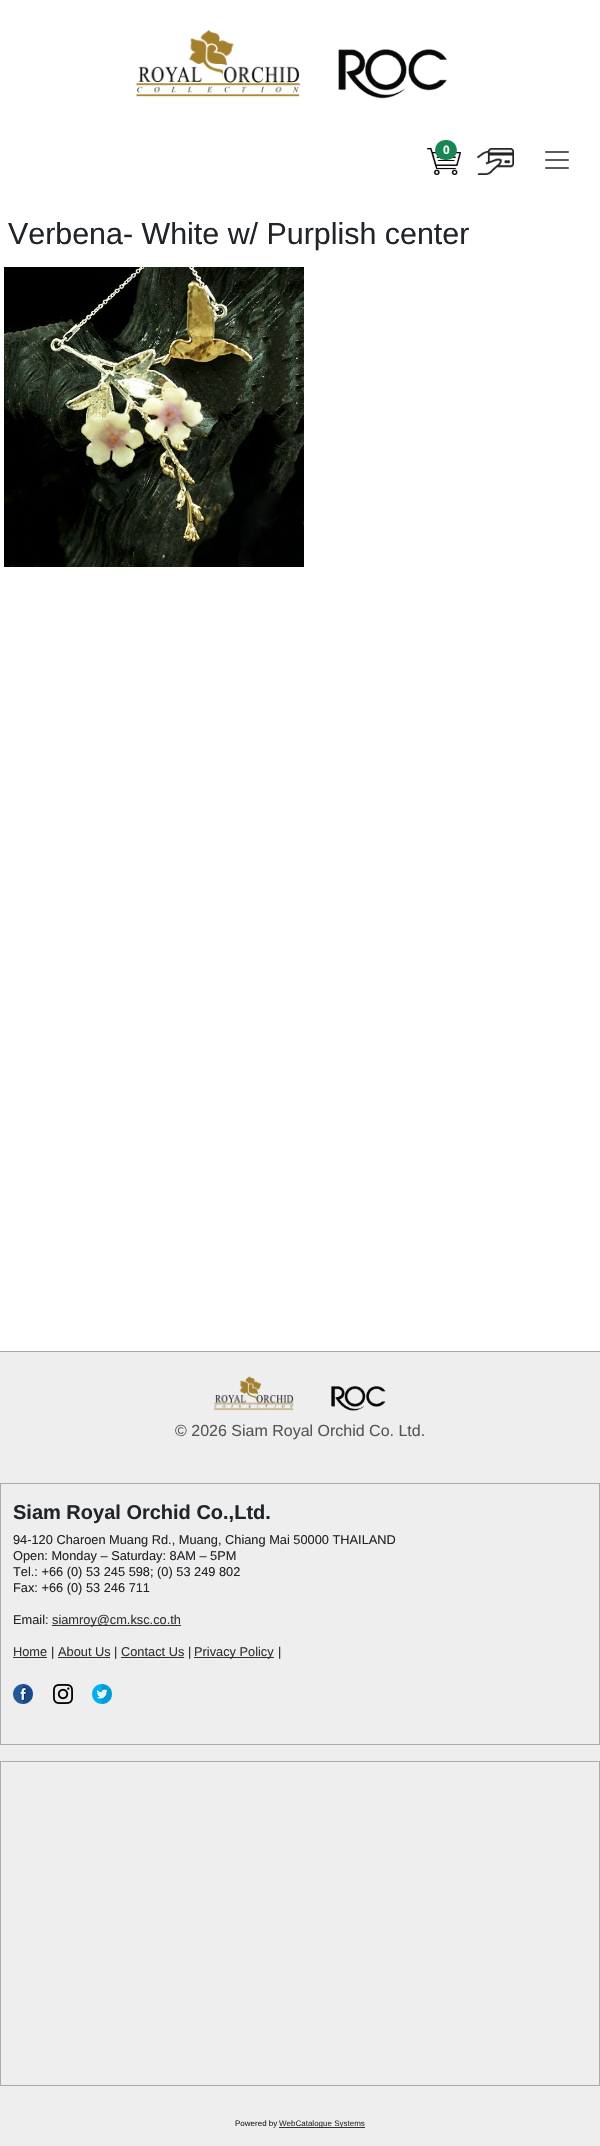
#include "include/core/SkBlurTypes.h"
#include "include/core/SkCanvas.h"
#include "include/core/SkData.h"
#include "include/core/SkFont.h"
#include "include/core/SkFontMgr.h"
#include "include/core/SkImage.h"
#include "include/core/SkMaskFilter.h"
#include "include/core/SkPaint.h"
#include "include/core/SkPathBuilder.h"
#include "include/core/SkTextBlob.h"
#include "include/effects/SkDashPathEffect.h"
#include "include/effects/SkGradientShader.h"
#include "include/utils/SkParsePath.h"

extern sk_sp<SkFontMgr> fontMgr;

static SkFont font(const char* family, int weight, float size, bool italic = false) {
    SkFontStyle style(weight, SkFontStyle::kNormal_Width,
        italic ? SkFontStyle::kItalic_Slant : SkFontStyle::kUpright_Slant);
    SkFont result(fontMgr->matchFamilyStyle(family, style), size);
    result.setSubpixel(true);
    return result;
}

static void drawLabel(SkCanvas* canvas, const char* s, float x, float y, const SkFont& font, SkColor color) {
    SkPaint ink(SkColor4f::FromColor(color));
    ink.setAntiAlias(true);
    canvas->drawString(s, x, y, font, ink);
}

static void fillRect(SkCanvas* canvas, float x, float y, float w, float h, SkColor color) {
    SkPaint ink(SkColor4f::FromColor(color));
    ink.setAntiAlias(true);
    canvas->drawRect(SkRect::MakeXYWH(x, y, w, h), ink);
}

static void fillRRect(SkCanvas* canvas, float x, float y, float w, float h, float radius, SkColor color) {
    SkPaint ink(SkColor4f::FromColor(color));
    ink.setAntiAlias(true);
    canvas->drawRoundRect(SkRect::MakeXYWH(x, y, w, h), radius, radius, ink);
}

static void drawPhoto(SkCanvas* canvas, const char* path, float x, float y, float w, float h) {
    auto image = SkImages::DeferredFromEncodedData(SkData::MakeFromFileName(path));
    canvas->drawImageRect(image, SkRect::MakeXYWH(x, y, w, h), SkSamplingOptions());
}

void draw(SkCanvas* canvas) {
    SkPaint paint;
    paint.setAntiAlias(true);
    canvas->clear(0xFFFFFFFF);
    drawPhoto(canvas, "assets/img1.png", 136, 30, 165, 67);
    drawPhoto(canvas, "assets/img2.png", 338, 49, 109, 50);
    drawPhoto(canvas, "assets/img3.png", 427, 148, 34, 27);
    fillRRect(canvas, 435, 140, 22, 20, 10, 0xFF198754);
    SkFont font1 = font("Liberation Sans", 700, 12);
    drawLabel(canvas, "0", 443, 154, font1, 0xFFFFFFFF);
    drawPhoto(canvas, "assets/img4.png", 477, 148, 37, 27);
    drawPhoto(canvas, "assets/img5.png", 545, 151, 24, 18);
    SkFont font2 = font("Liberation Sans", 400, 30.4f);
    drawLabel(canvas, "Verbena- White w/ Purplish center", 8, 244, font2, 0xFF212529);
    drawPhoto(canvas, "assets/img6.png", 4, 267, 300, 300);
    fillRect(canvas, 0, 1352, 600, 794, 0xFFEEEEEE);
    fillRect(canvas, 0, 1351, 600, 1, 0xFFAAAAAA);
    drawPhoto(canvas, "assets/img7.png", 214, 1376, 80, 35);
    drawPhoto(canvas, "assets/img8.png", 331, 1386, 55, 25);
    SkFont font3 = font("Liberation Sans", 400, 16);
    drawLabel(canvas, "© 2026 Siam Royal Orchid Co. Ltd.", 175, 1436, font3, 0xFF54575A);
    paint.setStroke(true);
    paint.setStrokeWidth(1);
    paint.setColor(0xFFAAAAAA);
    canvas->drawRect(SkRect::MakeXYWH(0.5f, 1483.5f, 599, 261), paint);
    SkFont font4 = font("Liberation Sans", 700, 20);
    drawLabel(canvas, "Siam Royal Orchid Co.,Ltd.", 13, 1519, font4, 0xFF212529);
    SkFont font5 = font("Liberation Sans", 400, 12.8f);
    drawLabel(canvas, "94-120 Charoen Muang Rd., Muang, Chiang Mai 50000 THAILAND", 13, 1544, font5, 0xFF212529);
    drawLabel(canvas, "Open: Monday – Saturday: 8AM – 5PM", 13, 1560, font5, 0xFF212529);
    drawLabel(canvas, "Tel.: +66 (0) 53 245 598; (0) 53 249 802", 13, 1576, font5, 0xFF212529);
    drawLabel(canvas, "Fax: +66 (0) 53 246 711", 13, 1592, font5, 0xFF212529);
    drawLabel(canvas, "Email:", 13, 1624, font5, 0xFF212529);
    fillRect(canvas, 52, 1625, 129, 1, 0xFF333333);
    drawLabel(canvas, "siamroy@cm.ksc.co.th", 52, 1624, font5, 0xFF333333);
    drawLabel(canvas, "Home", 13, 1656, font5, 0xFF333333);
    fillRect(canvas, 13, 1657, 34, 1, 0xFF333333);
    drawLabel(canvas, "|", 51, 1656, font5, 0xFF212529);
    drawLabel(canvas, "About Us", 58, 1656, font5, 0xFF333333);
    fillRect(canvas, 58, 1657, 52, 1, 0xFF333333);
    drawLabel(canvas, "|", 114, 1656, font5, 0xFF212529);
    drawLabel(canvas, "Contact Us", 121, 1656, font5, 0xFF333333);
    fillRect(canvas, 121, 1657, 63, 1, 0xFF333333);
    drawLabel(canvas, "|", 188, 1656, font5, 0xFF212529);
    fillRect(canvas, 194, 1657, 80, 1, 0xFF333333);
    drawLabel(canvas, "Privacy Policy", 194, 1656, font5, 0xFF333333);
    drawLabel(canvas, "|", 278, 1656, font5, 0xFF212529);
    drawPhoto(canvas, "assets/img9.png", 13, 1684, 20, 20);
    drawPhoto(canvas, "assets/img10.png", 53, 1684, 20, 20);
    drawPhoto(canvas, "assets/img11.png", 92, 1684, 20, 20);
    canvas->drawRect(SkRect::MakeXYWH(0.5f, 1761.5f, 599, 324), paint);
    SkFont font6 = font("Liberation Sans", 400, 8);
    drawLabel(canvas, "Powered by", 235, 2126, font6, 0xFF212529);
    fillRect(canvas, 279, 2127, 86, 1, 0xFF333333);
    drawLabel(canvas, "WebCatalogue Systems", 279, 2126, font6, 0xFF333333);
}
